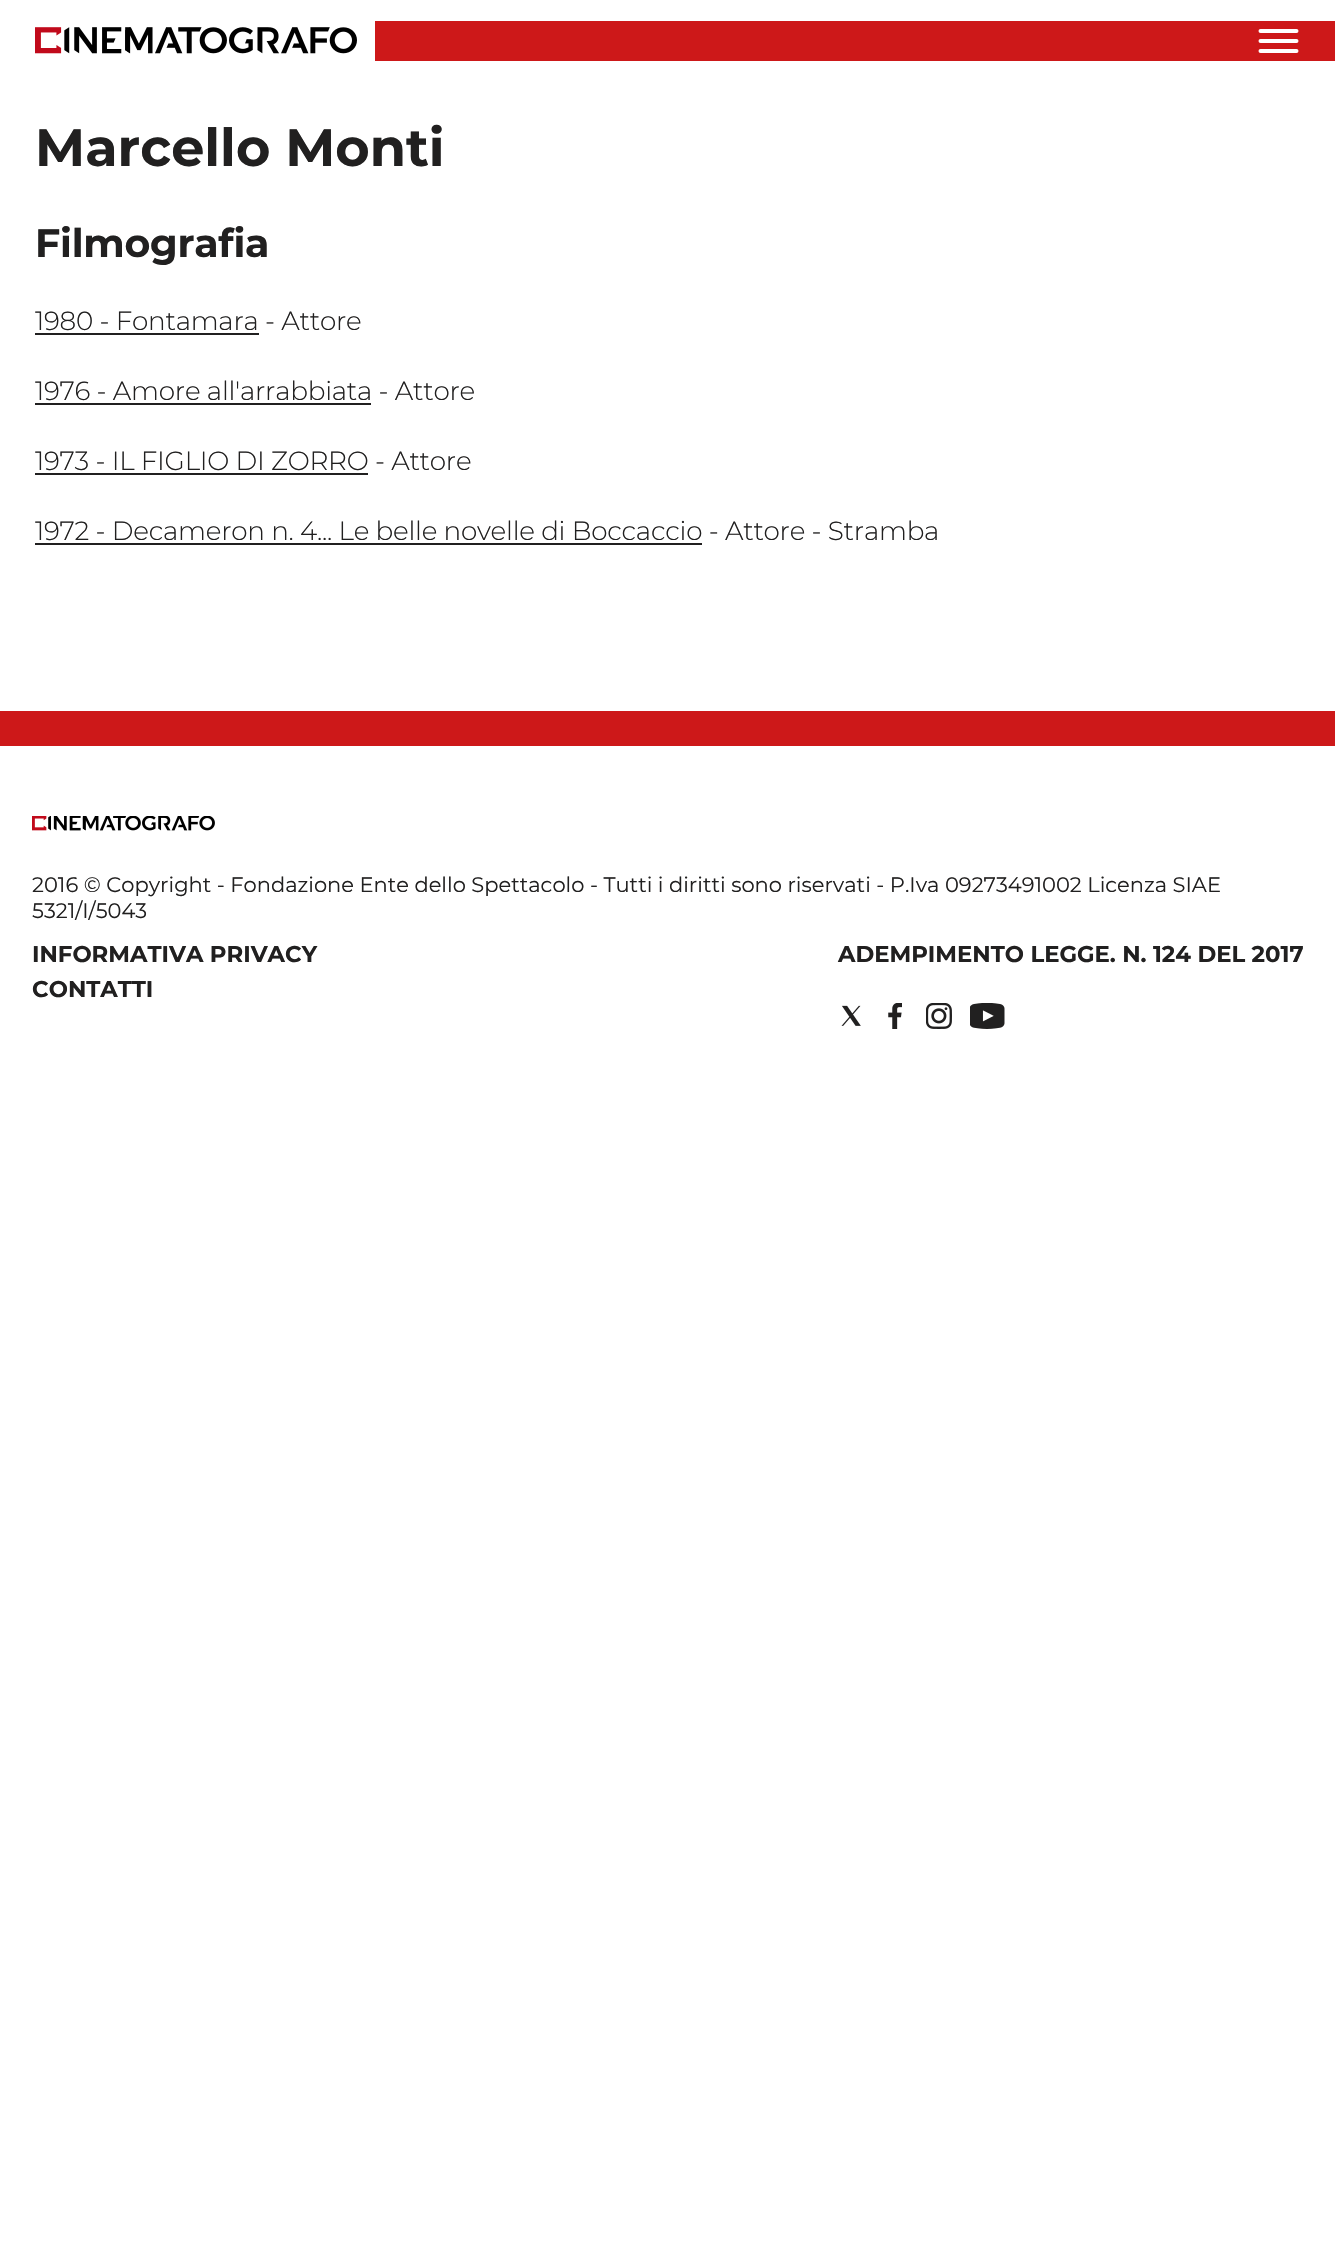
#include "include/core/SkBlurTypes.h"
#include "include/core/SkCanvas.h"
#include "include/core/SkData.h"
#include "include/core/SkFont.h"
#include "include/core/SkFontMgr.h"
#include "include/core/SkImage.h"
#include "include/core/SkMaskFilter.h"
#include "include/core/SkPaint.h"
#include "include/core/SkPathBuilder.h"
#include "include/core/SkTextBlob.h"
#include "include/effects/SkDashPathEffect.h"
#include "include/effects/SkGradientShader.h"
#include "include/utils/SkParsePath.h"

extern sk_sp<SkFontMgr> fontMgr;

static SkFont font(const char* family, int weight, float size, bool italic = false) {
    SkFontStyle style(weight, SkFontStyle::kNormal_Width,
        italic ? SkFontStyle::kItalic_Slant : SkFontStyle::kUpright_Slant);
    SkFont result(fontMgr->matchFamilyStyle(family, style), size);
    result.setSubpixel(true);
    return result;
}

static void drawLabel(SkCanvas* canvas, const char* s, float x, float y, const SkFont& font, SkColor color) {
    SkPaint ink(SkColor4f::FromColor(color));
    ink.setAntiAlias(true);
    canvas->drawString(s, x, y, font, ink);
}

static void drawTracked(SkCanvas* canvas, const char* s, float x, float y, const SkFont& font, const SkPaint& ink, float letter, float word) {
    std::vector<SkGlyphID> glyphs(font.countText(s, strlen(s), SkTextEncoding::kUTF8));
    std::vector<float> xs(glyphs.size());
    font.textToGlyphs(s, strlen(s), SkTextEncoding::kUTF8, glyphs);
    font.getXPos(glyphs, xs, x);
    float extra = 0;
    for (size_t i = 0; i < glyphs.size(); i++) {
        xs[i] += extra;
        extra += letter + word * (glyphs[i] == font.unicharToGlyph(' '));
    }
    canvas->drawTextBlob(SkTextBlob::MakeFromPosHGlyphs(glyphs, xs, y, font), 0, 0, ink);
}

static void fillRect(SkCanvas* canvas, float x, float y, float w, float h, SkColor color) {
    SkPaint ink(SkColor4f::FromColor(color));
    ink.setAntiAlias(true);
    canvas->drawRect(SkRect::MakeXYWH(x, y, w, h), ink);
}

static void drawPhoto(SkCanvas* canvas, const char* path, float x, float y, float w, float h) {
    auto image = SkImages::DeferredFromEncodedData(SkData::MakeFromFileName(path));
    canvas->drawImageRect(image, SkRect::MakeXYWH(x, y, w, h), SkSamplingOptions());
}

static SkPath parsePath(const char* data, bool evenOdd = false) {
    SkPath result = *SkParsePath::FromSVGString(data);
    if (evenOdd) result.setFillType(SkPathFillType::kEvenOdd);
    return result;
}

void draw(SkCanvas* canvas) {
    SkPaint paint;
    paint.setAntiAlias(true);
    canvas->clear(0xFFFFFFFF);
    drawPhoto(canvas, "assets/img1.png", 35, 27, 322, 27);
    fillRect(canvas, 375, 21, 960, 40, 0xFFCD1819);
    paint.setStroke(true);
    paint.setStrokeWidth(4);
    paint.setStrokeCap(SkPaint::kRound_Cap);
    paint.setColor(0xFFFFFFFF);
    canvas->drawPath(parsePath("M1260.5 31H1296.5M1260.5 41H1296.5M1260.5 51H1296.5"), paint);
    SkFont font1 = font("Montserrat", 700, 52.5f);
    drawLabel(canvas, "Marcello Monti", 35, 166, font1, 0xFF212020);
    SkFont font2 = font("Montserrat", 700, 39.5f);
    paint.setStroke(false);
    paint.setColor(0xFF212020);
    drawTracked(canvas, "Filmografia", 35, 257, font2, paint, -0.25f, 0);
    SkFont font3 = font("Montserrat", 300, 26.25f);
    drawTracked(canvas, "1980 - Fontamara - Attore", 35, 330, font3, paint, -0.25f, 0);
    fillRect(canvas, 35, 333, 224, 2, 0xFF212020);
    drawTracked(canvas, "1976 - Amore all'arrabbiata - Attore", 35, 400, font3, paint, -0.25f, 0);
    fillRect(canvas, 35, 403, 336, 2, 0xFF212020);
    drawTracked(canvas, "1973 - IL FIGLIO DI ZORRO - Attore", 35, 470, font3, paint, -0.25f, 0);
    fillRect(canvas, 35, 473, 333, 2, 0xFF212020);
    drawTracked(canvas, "1972 - Decameron n. 4... Le belle novelle di Boccaccio - Attore - Stramba", 35, 540, font3, paint, -0.25f, 0);
    fillRect(canvas, 35, 543, 667, 2, 0xFF212020);
    fillRect(canvas, 0, 711, 1335, 35, 0xFFCD1819);
    drawPhoto(canvas, "assets/img2.png", 32, 816, 183, 15);
    SkFont font4 = font("Montserrat", 400, 21);
    drawLabel(canvas, "2016 © Copyright - Fondazione Ente dello Spettacolo - Tutti i diritti sono riservati - P.Iva 09273491002 Licenza SIAE", 32, 892, font4, 0xFF212020);
    drawLabel(canvas, "5321/I/5043", 32, 918, font4, 0xFF212020);
    SkFont font5 = font("Montserrat", 700, 22.75f);
    drawLabel(canvas, "INFORMATIVA PRIVACY", 32, 962, font5, 0xFF212020);
    drawLabel(canvas, "CONTATTI", 32, 997, font5, 0xFF212020);
    drawLabel(canvas, "ADEMPIMENTO LEGGE. N. 124 DEL 2017", 838, 962, font5, 0xFF212020);
    drawPhoto(canvas, "assets/img3.png", 841, 1005, 20, 21);
    drawPhoto(canvas, "assets/img4.png", 888, 1003, 14, 26);
    drawPhoto(canvas, "assets/img5.png", 926, 1003, 26, 26);
    drawPhoto(canvas, "assets/img6.png", 970, 1003, 35, 26);
}
